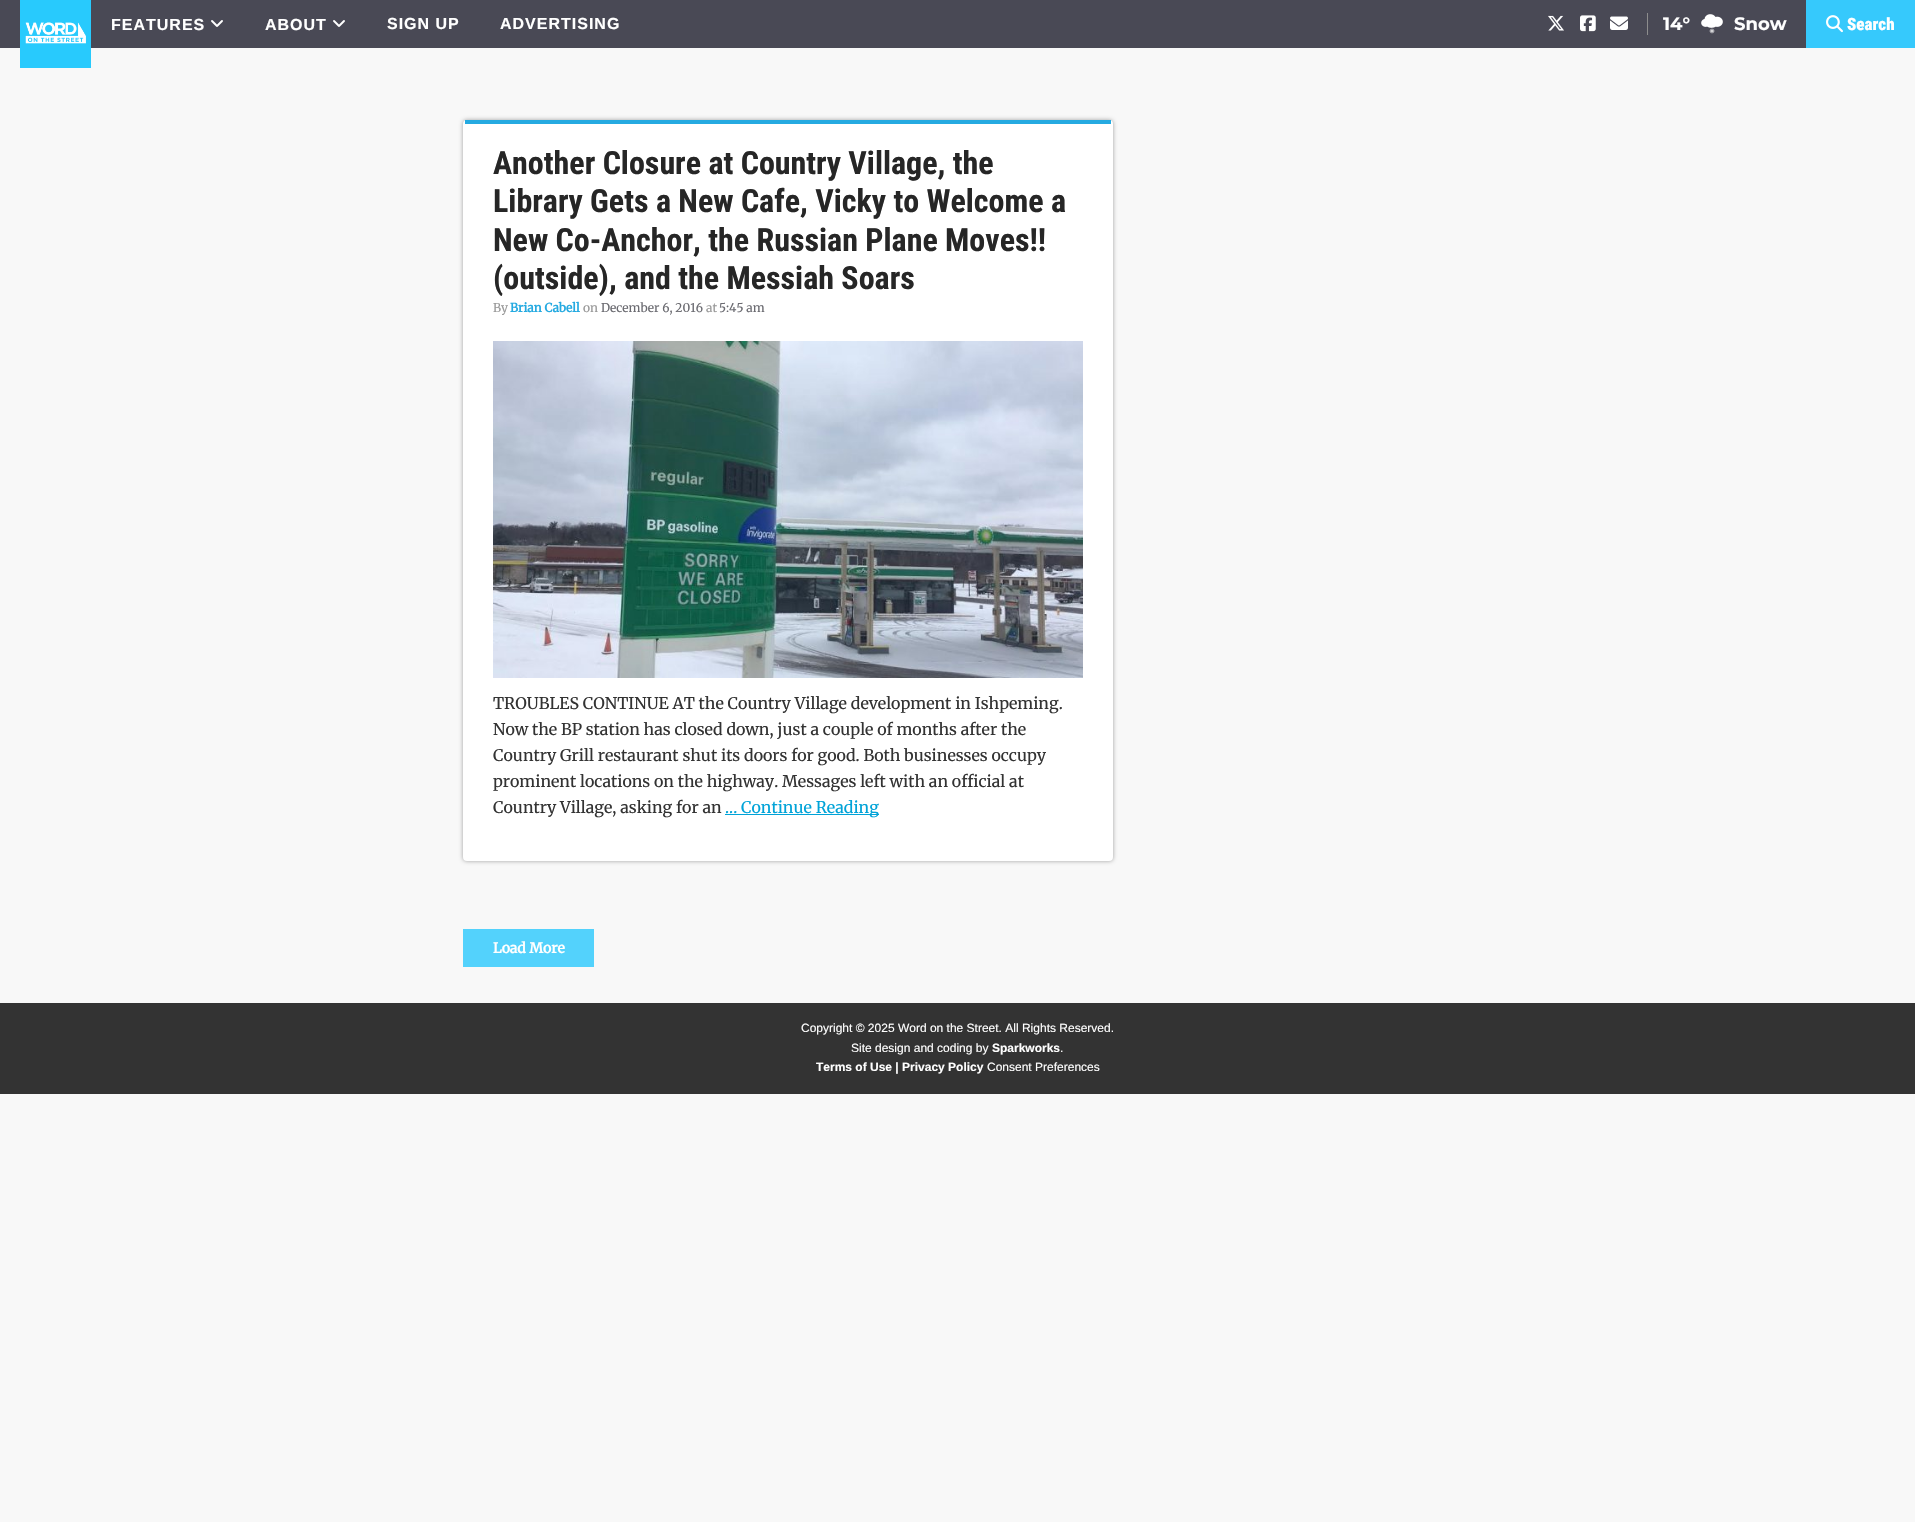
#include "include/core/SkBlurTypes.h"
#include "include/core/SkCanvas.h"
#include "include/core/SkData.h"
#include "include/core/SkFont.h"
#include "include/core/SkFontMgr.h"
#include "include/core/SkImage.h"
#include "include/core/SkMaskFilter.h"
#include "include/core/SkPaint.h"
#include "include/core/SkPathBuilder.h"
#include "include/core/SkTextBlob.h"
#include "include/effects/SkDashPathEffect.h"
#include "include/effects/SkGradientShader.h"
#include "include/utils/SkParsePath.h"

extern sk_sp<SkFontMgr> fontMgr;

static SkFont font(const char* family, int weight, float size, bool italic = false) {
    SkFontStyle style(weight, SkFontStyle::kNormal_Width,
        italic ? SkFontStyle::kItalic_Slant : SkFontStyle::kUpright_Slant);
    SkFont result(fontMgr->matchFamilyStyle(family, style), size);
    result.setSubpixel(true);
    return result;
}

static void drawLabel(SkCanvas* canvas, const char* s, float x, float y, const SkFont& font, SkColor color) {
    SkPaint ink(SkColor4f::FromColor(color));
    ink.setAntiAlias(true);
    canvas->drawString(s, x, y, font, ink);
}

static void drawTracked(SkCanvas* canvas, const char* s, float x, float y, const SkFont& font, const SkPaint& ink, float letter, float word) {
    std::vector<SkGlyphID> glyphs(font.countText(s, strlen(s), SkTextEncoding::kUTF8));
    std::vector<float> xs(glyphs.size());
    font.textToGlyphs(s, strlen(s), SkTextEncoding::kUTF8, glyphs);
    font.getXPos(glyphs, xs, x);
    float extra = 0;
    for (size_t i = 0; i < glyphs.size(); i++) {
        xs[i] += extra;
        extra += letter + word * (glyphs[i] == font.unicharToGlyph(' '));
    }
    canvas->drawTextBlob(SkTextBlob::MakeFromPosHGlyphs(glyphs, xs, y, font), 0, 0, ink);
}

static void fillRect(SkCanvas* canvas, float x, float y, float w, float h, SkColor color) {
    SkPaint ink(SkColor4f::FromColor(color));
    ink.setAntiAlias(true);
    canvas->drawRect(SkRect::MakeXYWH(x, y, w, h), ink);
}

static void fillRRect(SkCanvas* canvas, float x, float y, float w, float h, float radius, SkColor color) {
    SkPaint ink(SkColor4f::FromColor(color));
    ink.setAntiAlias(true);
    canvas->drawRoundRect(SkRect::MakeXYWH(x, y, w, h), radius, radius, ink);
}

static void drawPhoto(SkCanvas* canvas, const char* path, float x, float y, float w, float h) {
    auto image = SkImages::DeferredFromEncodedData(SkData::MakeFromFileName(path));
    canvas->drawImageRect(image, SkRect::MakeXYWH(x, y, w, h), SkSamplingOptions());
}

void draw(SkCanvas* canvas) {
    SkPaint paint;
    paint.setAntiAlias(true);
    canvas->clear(0xFFF8F8F8);
    fillRect(canvas, 0, 0, 1806, 48, 0xFF494955);
    fillRect(canvas, 20, 0, 71, 68, 0xFF28CAFD);
    drawPhoto(canvas, "assets/img1.png", 25, 22, 61, 22);
    SkFont font1 = font("Liberation Sans", 700, 16);
    paint.setColor(0xFFFFFFFF);
    drawTracked(canvas, "FEATURES", 111, 30, font1, paint, 1, 0);
    drawPhoto(canvas, "assets/img2.png", 211, 20, 12, 7);
    drawTracked(canvas, "ABOUT", 265, 30, font1, paint, 1, 0);
    drawPhoto(canvas, "assets/img2.png", 333, 20, 12, 7);
    drawTracked(canvas, "SIGN UP", 387, 29, font1, paint, 1, 0);
    drawTracked(canvas, "ADVERTISING", 500, 29, font1, paint, 1, 0);
    drawPhoto(canvas, "assets/img3.png", 1548, 15, 16, 16);
    drawPhoto(canvas, "assets/img4.png", 1580, 15, 16, 17);
    drawPhoto(canvas, "assets/img5.png", 1610, 16, 18, 14);
    fillRect(canvas, 1647, 13, 1, 22, 0xFF8D8D8D);
    SkFont font2 = font("Montserrat", 700, 18);
    drawLabel(canvas, "14°", 1663, 30, font2, 0xFFFFFFFF);
    drawPhoto(canvas, "assets/img6.png", 1701, 14, 22, 20);
    drawLabel(canvas, "Snow", 1734, 30, font2, 0xFFFFFFFF);
    fillRect(canvas, 1806, 0, 109, 48, 0xFF36C9FC);
    drawPhoto(canvas, "assets/img7.png", 1826, 15, 17, 18);
    SkFont font3 = font("Roboto Condensed", 900, 17);
    drawLabel(canvas, "Search", 1847, 30, font3, 0xFFFFFFFF);
    paint.setColor(0xFF9E9E9E);
    paint.setMaskFilter(SkMaskFilter::MakeBlur(kNormal_SkBlurStyle, 2));
    canvas->drawRoundRect(SkRect::MakeXYWH(463, 120, 650, 741), 4, 4, paint);
    paint.setMaskFilter(nullptr);
    fillRRect(canvas, 463, 120, 650, 741, 4, 0xFFFFFFFF);
    fillRect(canvas, 465, 120, 646, 4, 0xFF25AAE1);
    SkFont font4 = font("Roboto Condensed", 700, 32);
    drawLabel(canvas, "Another Closure at Country Village, the", 493, 174, font4, 0xFF262626);
    drawLabel(canvas, "Library Gets a New Cafe, Vicky to Welcome a", 493, 212, font4, 0xFF262626);
    drawLabel(canvas, "New Co-Anchor, the Russian Plane Moves!!", 493, 251, font4, 0xFF262626);
    drawLabel(canvas, "(outside), and the Messiah Soars", 493, 289, font4, 0xFF262626);
    SkFont font5 = font("Merriweather", 300, 12);
    drawLabel(canvas, "By", 493, 312, font5, 0xFF999999);
    SkFont font6 = font("Merriweather", 700, 12);
    drawLabel(canvas, "Brian Cabell", 510, 312, font6, 0xFF25AAE1);
    drawLabel(canvas, "on", 583, 312, font5, 0xFF999999);
    drawLabel(canvas, "December 6, 2016", 601, 312, font5, 0xFF6B6B71);
    drawLabel(canvas, "at", 706, 312, font5, 0xFF999999);
    drawLabel(canvas, "5:45 am", 719, 312, font5, 0xFF6B6B71);
    drawPhoto(canvas, "assets/img8.png", 493, 341, 590, 337);
    SkFont font7 = font("Merriweather", 300, 16);
    drawLabel(canvas, "TROUBLES CONTINUE AT the Country Village development in Ishpeming.", 493, 709, font7, 0xFF333333);
    drawLabel(canvas, "Now the BP station has closed down, just a couple of months after the", 493, 735, font7, 0xFF333333);
    drawLabel(canvas, "Country Grill restaurant shut its doors for good. Both businesses occupy", 493, 761, font7, 0xFF333333);
    drawLabel(canvas, "prominent locations on the highway. Messages left with an official at", 493, 787, font7, 0xFF333333);
    drawLabel(canvas, "Country Village, asking for an", 493, 813, font7, 0xFF333333);
    fillRect(canvas, 725, 814, 154, 1, 0xFF00A3D8);
    drawLabel(canvas, "... Continue Reading", 725, 813, font7, 0xFF00A3D8);
    fillRect(canvas, 463, 929, 131, 38, 0xFF53D2FC);
    SkFont font8 = font("Merriweather", 700, 14);
    drawLabel(canvas, "Load More", 493, 953, font8, 0xFFFFFFFF);
    fillRect(canvas, 0, 1003, 1915, 91, 0xFF333333);
    SkFont font9 = font("Liberation Sans", 400, 12);
    drawLabel(canvas, "Copyright © 2025 Word on the Street. All Rights Reserved.", 801, 1032, font9, 0xFFFFFFFF);
    drawLabel(canvas, "Site design and coding by", 851, 1052, font9, 0xFFFFFFFF);
    SkFont font10 = font("Liberation Sans", 700, 12);
    drawLabel(canvas, "Sparkworks", 992, 1052, font10, 0xFFFFFFFF);
    drawLabel(canvas, ".", 1060, 1052, font9, 0xFFFFFFFF);
    drawLabel(canvas, "Terms of Use | Privacy Policy", 816, 1071, font10, 0xFFFFFFFF);
    drawLabel(canvas, "Consent Preferences", 987, 1071, font9, 0xFFFFFFFF);
}
